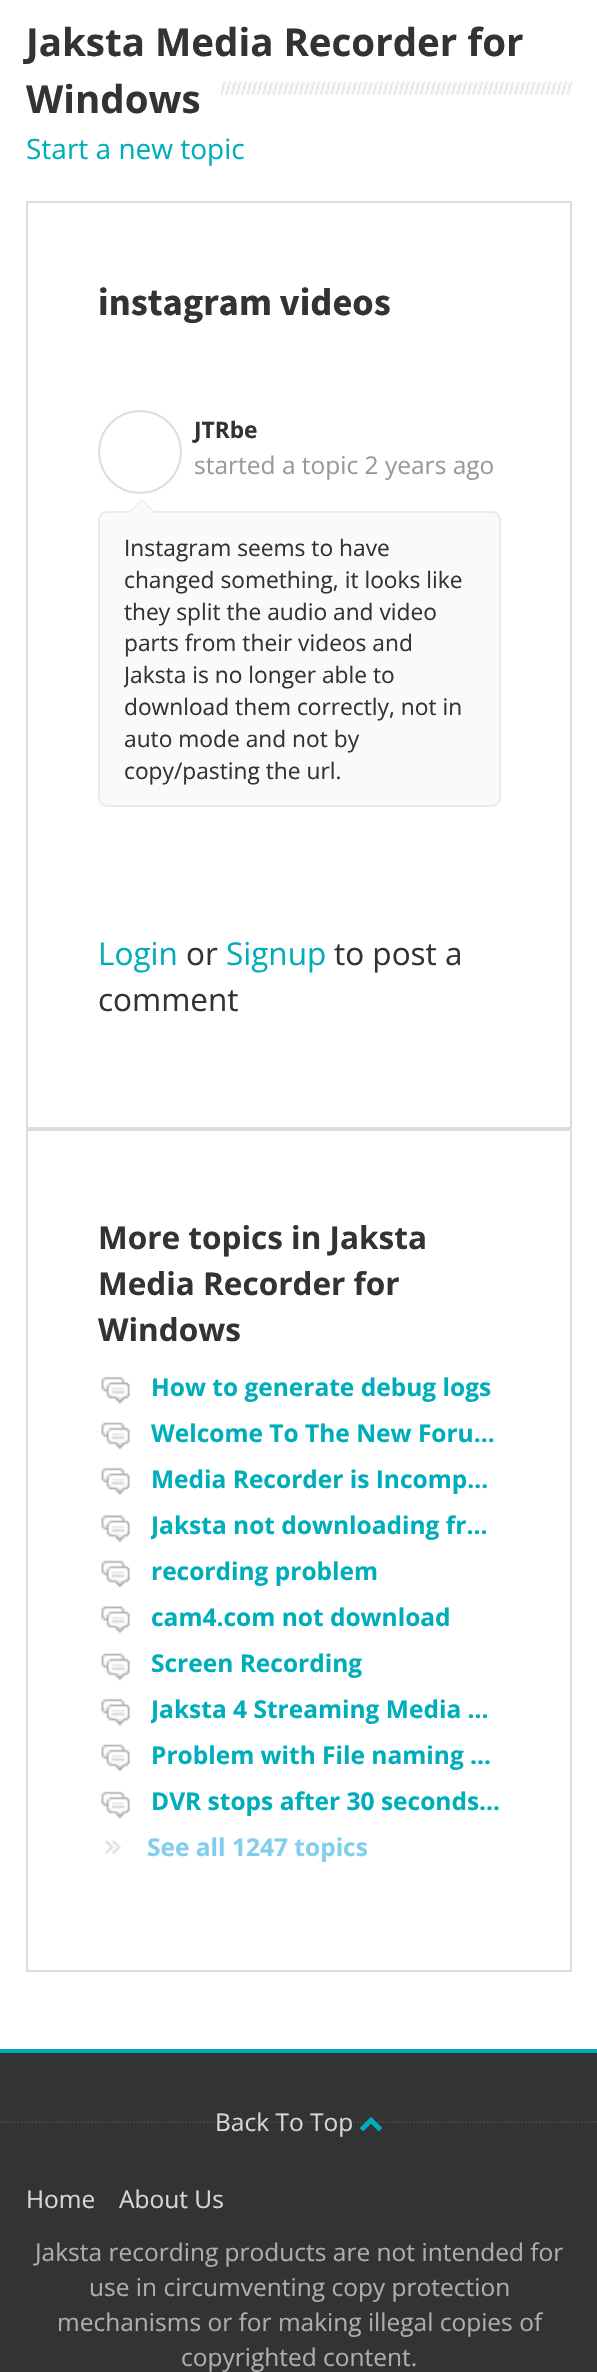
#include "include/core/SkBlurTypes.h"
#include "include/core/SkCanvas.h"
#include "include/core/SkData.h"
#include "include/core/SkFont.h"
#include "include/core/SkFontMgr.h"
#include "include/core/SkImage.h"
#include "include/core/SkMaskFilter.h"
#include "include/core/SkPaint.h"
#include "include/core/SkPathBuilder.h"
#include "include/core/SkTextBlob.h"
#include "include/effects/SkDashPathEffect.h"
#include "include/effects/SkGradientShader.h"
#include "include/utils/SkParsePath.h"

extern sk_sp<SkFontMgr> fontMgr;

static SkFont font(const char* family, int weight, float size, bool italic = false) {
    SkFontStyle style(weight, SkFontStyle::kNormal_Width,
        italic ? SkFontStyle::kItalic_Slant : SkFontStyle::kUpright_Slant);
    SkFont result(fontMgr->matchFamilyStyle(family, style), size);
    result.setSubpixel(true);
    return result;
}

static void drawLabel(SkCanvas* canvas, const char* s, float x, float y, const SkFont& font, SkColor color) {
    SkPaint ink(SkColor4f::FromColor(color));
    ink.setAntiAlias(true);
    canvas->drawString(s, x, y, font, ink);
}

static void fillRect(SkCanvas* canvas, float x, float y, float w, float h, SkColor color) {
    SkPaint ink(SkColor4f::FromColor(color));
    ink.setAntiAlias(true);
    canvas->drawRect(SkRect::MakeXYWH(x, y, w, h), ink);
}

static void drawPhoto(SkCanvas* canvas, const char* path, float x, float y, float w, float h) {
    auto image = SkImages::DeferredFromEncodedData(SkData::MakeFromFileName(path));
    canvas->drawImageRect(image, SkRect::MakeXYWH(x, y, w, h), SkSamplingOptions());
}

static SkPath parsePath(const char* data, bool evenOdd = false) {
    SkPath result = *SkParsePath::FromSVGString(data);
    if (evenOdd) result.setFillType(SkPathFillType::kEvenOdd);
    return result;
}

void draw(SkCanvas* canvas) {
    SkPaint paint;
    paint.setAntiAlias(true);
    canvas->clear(0xFFFFFFFF);
    drawPhoto(canvas, "assets/img1.png", 221, 81, 352, 14);
    SkFont font1 = font("Open Sans", 700, 38.5f);
    drawLabel(canvas, "Jaksta Media Recorder for", 26, 56, font1, 0xFF333333);
    drawLabel(canvas, "Windows", 26, 113, font1, 0xFF333333);
    SkFont font2 = font("Open Sans", 400, 28);
    drawLabel(canvas, "Start a new topic", 26, 159, font2, 0xFF00ADBB);
    paint.setStroke(true);
    paint.setStrokeWidth(2);
    paint.setColor(0xFFDCDCDC);
    canvas->drawRect(SkRect::MakeXYWH(27, 202, 544, 926), paint);
    SkFont font3 = font("Source Sans Pro", 700, 38.5f);
    drawLabel(canvas, "instagram videos", 98, 315, font3, 0xFF333333);
    paint.setColor(0xFFDDDDDD);
    canvas->drawCircle(140, 452, 41, paint);
    paint.setStroke(false);
    paint.setColor(0xFFFAFAFA);
    canvas->drawRoundRect(SkRect::MakeXYWH(99, 512, 401, 294), 8, 8, paint);
    paint.setStroke(true);
    paint.setColor(0xFFEBEBEB);
    canvas->drawRoundRect(SkRect::MakeXYWH(99, 512, 401, 294), 8, 8, paint);
    paint.setStroke(false);
    canvas->drawPath(parsePath("M156 513H128L142 499Z"), paint);
    paint.setColor(0xFFFAFAFA);
    canvas->drawPath(parsePath("M154 513H129.5L142 500.5Z"), paint);
    SkFont font4 = font("Open Sans", 700, 22.75f);
    drawLabel(canvas, "JTRbe", 194, 438, font4, 0xFF333333);
    SkFont font5 = font("Open Sans", 400, 24.5f);
    drawLabel(canvas, "started a topic 2 years ago", 194, 474, font5, 0xFF999999);
    SkFont font6 = font("Open Sans", 400, 22.75f);
    drawLabel(canvas, "Instagram seems to have", 124, 556, font6, 0xFF333333);
    drawLabel(canvas, "changed something, it looks like", 124, 588, font6, 0xFF333333);
    drawLabel(canvas, "they split the audio and video", 124, 620, font6, 0xFF333333);
    drawLabel(canvas, "parts from their videos and", 124, 651, font6, 0xFF333333);
    canvas->save();
    canvas->clipRect(SkRect::MakeXYWH(124, 532, 350, 254));
    drawLabel(canvas, "Jaksta is no longer able to", 124, 683, font6, 0xFF333333);
    canvas->restore();
    drawLabel(canvas, "download them correctly, not in", 124, 715, font6, 0xFF333333);
    drawLabel(canvas, "auto mode and not by", 124, 747, font6, 0xFF333333);
    drawLabel(canvas, "copy/pasting the url.", 124, 779, font6, 0xFF333333);
    SkFont font7 = font("Open Sans", 400, 31.5f);
    drawLabel(canvas, "Login", 98, 965, font7, 0xFF00ADBB);
    drawLabel(canvas, "or", 186, 965, font7, 0xFF333333);
    drawLabel(canvas, "Signup", 226, 965, font7, 0xFF00ADBB);
    drawLabel(canvas, "to post a", 334, 965, font7, 0xFF333333);
    drawLabel(canvas, "comment", 98, 1011, font7, 0xFF333333);
    paint.setStroke(true);
    paint.setColor(0xFFDCDCDC);
    canvas->drawRect(SkRect::MakeXYWH(27, 1130, 544, 841), paint);
    SkFont font8 = font("Open Sans", 700, 31.5f);
    drawLabel(canvas, "More topics in Jaksta", 98, 1249, font8, 0xFF333333);
    drawLabel(canvas, "Media Recorder for", 98, 1295, font8, 0xFF333333);
    drawLabel(canvas, "Windows", 98, 1341, font8, 0xFF333333);
    drawPhoto(canvas, "assets/img2.png", 101, 1376, 29, 28);
    SkFont font9 = font("Open Sans", 700, 24.5f);
    drawLabel(canvas, "How to generate debug logs", 151, 1396, font9, 0xFF00ADBB);
    drawPhoto(canvas, "assets/img3.png", 101, 1422, 29, 28);
    drawLabel(canvas, "Welcome To The New Foru…", 151, 1442, font9, 0xFF00ADBB);
    drawPhoto(canvas, "assets/img4.png", 101, 1467, 29, 28);
    drawLabel(canvas, "Media Recorder is Incomp…", 151, 1488, font9, 0xFF00ADBB);
    drawPhoto(canvas, "assets/img5.png", 101, 1515, 29, 28);
    canvas->save();
    canvas->clipRect(SkRect::MakeXYWH(151, 1509, 350, 35));
    drawLabel(canvas, "Jaksta not downloading fr…", 151, 1534, font9, 0xFF00ADBB);
    canvas->restore();
    drawPhoto(canvas, "assets/img6.png", 101, 1560, 29, 28);
    drawLabel(canvas, "recording problem", 151, 1580, font9, 0xFF00ADBB);
    drawPhoto(canvas, "assets/img5.png", 101, 1606, 29, 28);
    drawLabel(canvas, "cam4.com not download", 151, 1626, font9, 0xFF00ADBB);
    drawPhoto(canvas, "assets/img7.png", 101, 1653, 29, 28);
    drawLabel(canvas, "Screen Recording", 151, 1672, font9, 0xFF00ADBB);
    drawPhoto(canvas, "assets/img2.png", 101, 1698, 29, 28);
    canvas->save();
    canvas->clipRect(SkRect::MakeXYWH(151, 1692, 350, 35));
    drawLabel(canvas, "Jaksta 4 Streaming Media …", 151, 1718, font9, 0xFF00ADBB);
    canvas->restore();
    drawPhoto(canvas, "assets/img3.png", 101, 1744, 29, 28);
    drawLabel(canvas, "Problem with File naming …", 151, 1764, font9, 0xFF00ADBB);
    drawPhoto(canvas, "assets/img6.png", 101, 1791, 29, 28);
    drawLabel(canvas, "DVR stops after 30 seconds…", 151, 1810, font9, 0xFF00ADBB);
    drawPhoto(canvas, "assets/img8.png", 104, 1840, 17, 14);
    drawLabel(canvas, "See all 1247 topics", 147, 1856, font9, 0xFF82CEED);
    fillRect(canvas, 0, 2053, 597, 319, 0xFF333333);
    fillRect(canvas, 0, 2049, 597, 4, 0xFF00ADBB);
    paint.setStrokeWidth(1.8f);
    paint.setColor(0xFF474747);
    paint.setPathEffect(SkDashPathEffect::Make({{1.75f, 1.75f}}, 0));
    canvas->drawPath(parsePath("M0 2122H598.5"), paint);
    paint.setPathEffect(nullptr);
    drawLabel(canvas, "Back To Top", 215, 2131, font5, 0xFFD6D6D6);
    drawPhoto(canvas, "assets/img9.png", 360, 2117, 22, 15);
    drawLabel(canvas, "Home", 26, 2208, font5, 0xFFD6D6D6);
    drawLabel(canvas, "About Us", 119, 2208, font5, 0xFFD6D6D6);
    drawLabel(canvas, "Jaksta recording products are not intended for", 35, 2261, font5, 0xFFADADAD);
    drawLabel(canvas, "use in circumventing copy protection", 89, 2296, font5, 0xFFADADAD);
    drawLabel(canvas, "mechanisms or for making illegal copies of", 57, 2331, font5, 0xFFADADAD);
    drawLabel(canvas, "copyrighted content.", 181, 2366, font5, 0xFFADADAD);
}
